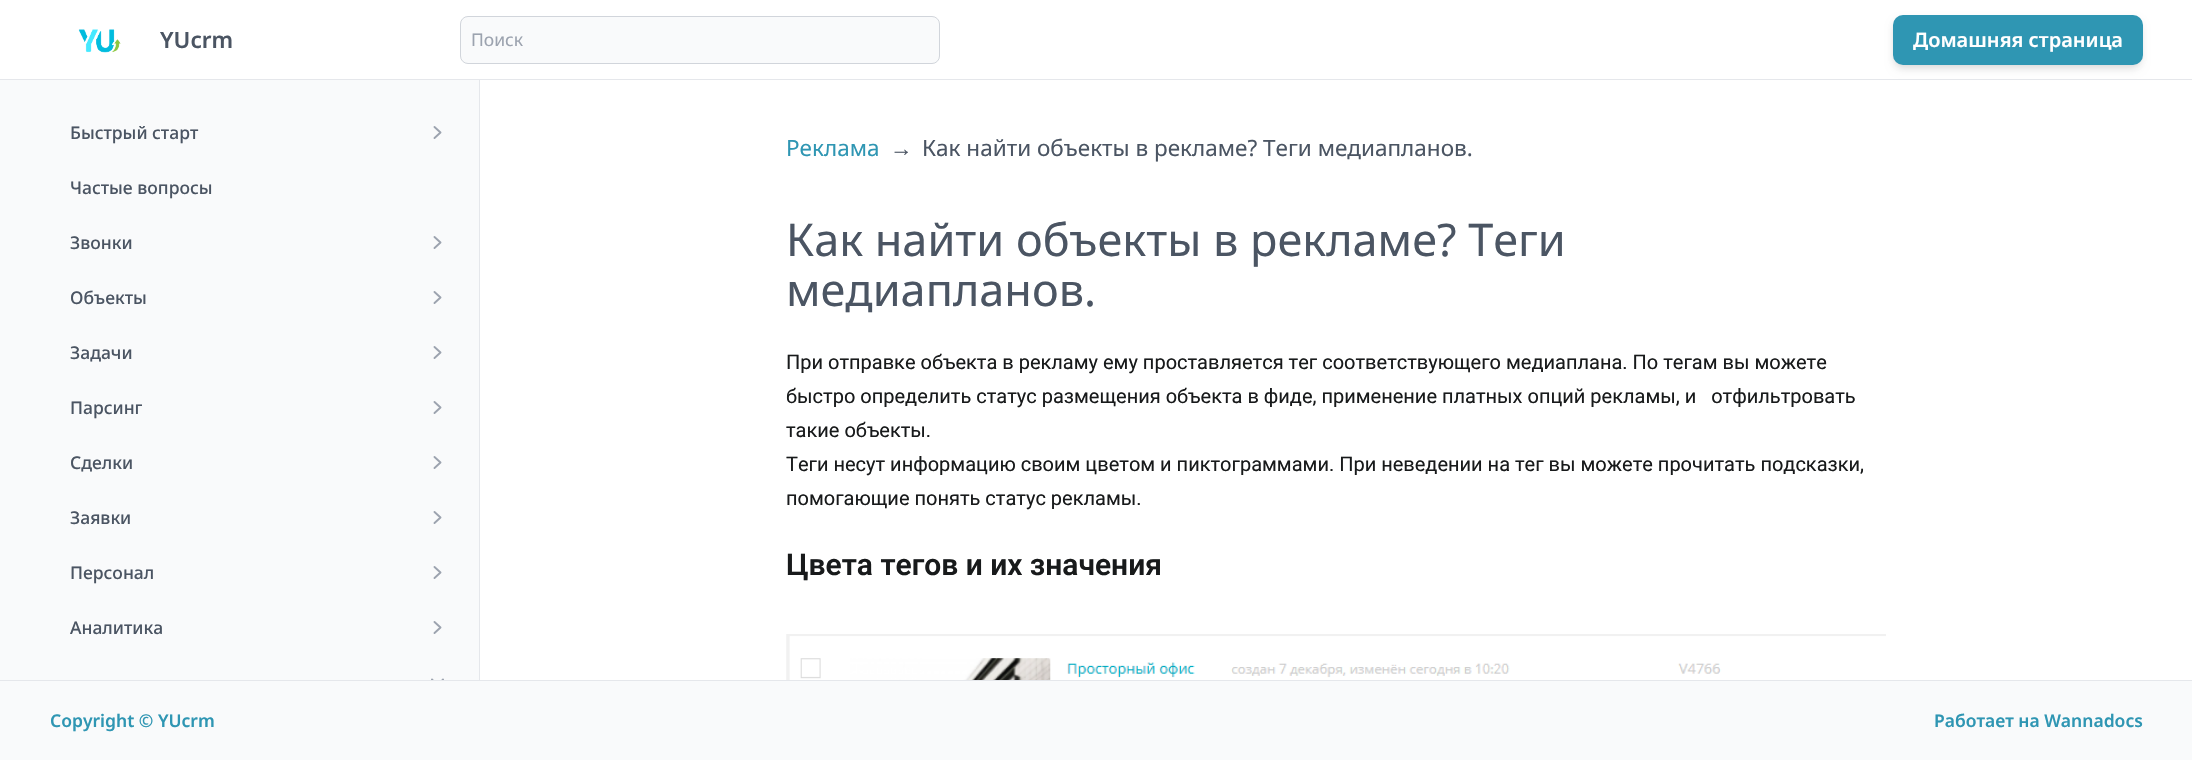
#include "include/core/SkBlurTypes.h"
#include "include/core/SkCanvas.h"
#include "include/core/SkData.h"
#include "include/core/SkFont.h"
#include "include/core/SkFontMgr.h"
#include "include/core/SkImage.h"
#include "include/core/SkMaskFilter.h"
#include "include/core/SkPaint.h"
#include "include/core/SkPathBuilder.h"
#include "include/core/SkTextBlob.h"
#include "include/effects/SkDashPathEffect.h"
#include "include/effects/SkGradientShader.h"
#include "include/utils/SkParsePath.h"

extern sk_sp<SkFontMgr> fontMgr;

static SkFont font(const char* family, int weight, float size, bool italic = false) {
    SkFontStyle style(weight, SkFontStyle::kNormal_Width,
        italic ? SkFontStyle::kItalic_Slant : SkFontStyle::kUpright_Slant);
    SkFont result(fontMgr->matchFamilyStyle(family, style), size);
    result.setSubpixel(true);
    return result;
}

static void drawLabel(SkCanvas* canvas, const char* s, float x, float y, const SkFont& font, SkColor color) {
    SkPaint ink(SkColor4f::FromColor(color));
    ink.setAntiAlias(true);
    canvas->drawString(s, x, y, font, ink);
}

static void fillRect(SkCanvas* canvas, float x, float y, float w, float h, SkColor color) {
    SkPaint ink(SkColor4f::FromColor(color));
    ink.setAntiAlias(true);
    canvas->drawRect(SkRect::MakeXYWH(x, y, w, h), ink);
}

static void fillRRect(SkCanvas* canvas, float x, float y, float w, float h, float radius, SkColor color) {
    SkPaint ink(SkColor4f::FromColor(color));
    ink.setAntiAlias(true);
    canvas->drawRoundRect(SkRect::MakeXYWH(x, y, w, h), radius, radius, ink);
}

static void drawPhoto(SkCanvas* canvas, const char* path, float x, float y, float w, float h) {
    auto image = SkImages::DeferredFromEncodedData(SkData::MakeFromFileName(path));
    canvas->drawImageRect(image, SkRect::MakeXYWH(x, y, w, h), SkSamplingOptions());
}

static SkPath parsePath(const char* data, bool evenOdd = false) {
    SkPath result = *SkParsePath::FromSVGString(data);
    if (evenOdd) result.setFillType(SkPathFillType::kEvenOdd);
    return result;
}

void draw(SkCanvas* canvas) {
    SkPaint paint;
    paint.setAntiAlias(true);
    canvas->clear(0xFFFFFFFF);
    fillRect(canvas, 0, 79, 2192, 1, 0xFFE5E7EB);
    drawPhoto(canvas, "assets/img1.png", 78, 29, 43, 24);
    SkFont font1 = font("Noto Sans", 600, 22.5f);
    drawLabel(canvas, "YUcrm", 160, 48, font1, 0xFF4B5563);
    paint.setColor(0xFFF9FAFB);
    canvas->drawRoundRect(SkRect::MakeXYWH(460.5f, 16.5f, 479, 47), 7.5f, 7.5f, paint);
    paint.setStroke(true);
    paint.setStrokeWidth(1);
    paint.setColor(0xFFD1D5DB);
    canvas->drawRoundRect(SkRect::MakeXYWH(460.5f, 16.5f, 479, 47), 7.5f, 7.5f, paint);
    SkFont font2 = font("Noto Sans", 400, 17.5f);
    drawLabel(canvas, "Поиск", 471, 46, font2, 0xFF9CA3AF);
    paint.setStroke(false);
    paint.setColor(0x0F000000);
    paint.setMaskFilter(SkMaskFilter::MakeBlur(kNormal_SkBlurStyle, 2.5f));
    canvas->drawRoundRect(SkRect::MakeXYWH(1894, 19, 247, 47), 9, 9, paint);
    paint.setMaskFilter(nullptr);
    paint.setColor(0x1A000000);
    paint.setMaskFilter(SkMaskFilter::MakeBlur(kNormal_SkBlurStyle, 4));
    canvas->drawRoundRect(SkRect::MakeXYWH(1894, 21, 247, 48), 9, 9, paint);
    paint.setMaskFilter(nullptr);
    fillRRect(canvas, 1893, 15, 250, 50, 10, 0xFF2F96B3);
    SkFont font3 = font("Noto Sans", 600, 20);
    drawLabel(canvas, "Домашняя страница", 1913, 47, font3, 0xFFFFFFFF);
    fillRect(canvas, 0, 80, 479, 600, 0xFFF9FAFB);
    fillRect(canvas, 479, 80, 1, 600, 0xFFE5E7EB);
    SkFont font4 = font("Noto Sans", 500, 17.5f);
    drawLabel(canvas, "Быстрый старт", 70, 139, font4, 0xFF4B5563);
    paint.setStroke(true);
    paint.setStrokeWidth(1.9f);
    paint.setStrokeCap(SkPaint::kRound_Cap);
    paint.setStrokeJoin(SkPaint::kRound_Join);
    paint.setColor(0xFF9CA3AF);
    canvas->drawPath(parsePath("M434.5 138L440.5 132.5L434.5 127"), paint);
    drawLabel(canvas, "Частые вопросы", 70, 194, font4, 0xFF4B5563);
    drawLabel(canvas, "Звонки", 70, 249, font4, 0xFF4B5563);
    canvas->drawPath(parsePath("M434.5 248L440.5 242.5L434.5 237"), paint);
    drawLabel(canvas, "Объекты", 70, 304, font4, 0xFF4B5563);
    canvas->drawPath(parsePath("M434.5 303L440.5 297.5L434.5 292"), paint);
    drawLabel(canvas, "Задачи", 70, 359, font4, 0xFF4B5563);
    canvas->drawPath(parsePath("M434.5 358L440.5 352.5L434.5 347"), paint);
    drawLabel(canvas, "Парсинг", 70, 414, font4, 0xFF4B5563);
    canvas->drawPath(parsePath("M434.5 413L440.5 407.5L434.5 402"), paint);
    drawLabel(canvas, "Сделки", 70, 469, font4, 0xFF4B5563);
    canvas->drawPath(parsePath("M434.5 468L440.5 462.5L434.5 457"), paint);
    drawLabel(canvas, "Заявки", 70, 524, font4, 0xFF4B5563);
    canvas->drawPath(parsePath("M434.5 523L440.5 517.5L434.5 512"), paint);
    drawLabel(canvas, "Персонал", 70, 579, font4, 0xFF4B5563);
    canvas->drawPath(parsePath("M434.5 578L440.5 572.5L434.5 567"), paint);
    drawLabel(canvas, "Аналитика", 70, 634, font4, 0xFF4B5563);
    canvas->drawPath(parsePath("M434.5 633L440.5 627.5L434.5 622"), paint);
    canvas->save();
    canvas->clipRect(SkRect::MakeXYWH(0, 80, 479, 600));
    canvas->drawPath(parsePath("M432 679.5L437.5 685.5L443 679.5"), paint);
    canvas->restore();
    SkFont font5 = font("Noto Sans", 400, 22.5f);
    drawLabel(canvas, "Реклама", 786, 156, font5, 0xFF2F96B3);
    SkFont font6 = font("Liberation Sans", 400, 22.5f);
    drawLabel(canvas, "→", 890, 156, font6, 0xFF4B5563);
    drawLabel(canvas, "Как найти объекты в рекламе? Теги медиапланов.", 922, 156, font5, 0xFF4B5563);
    SkFont font7 = font("Noto Sans", 400, 45);
    drawLabel(canvas, "Как найти объекты в рекламе? Теги", 786, 256, font7, 0xFF4B5563);
    drawLabel(canvas, "медиапланов.", 786, 306, font7, 0xFF4B5563);
    SkFont font8 = font("Roboto", 400, 20);
    drawLabel(canvas, "При отправке объекта в рекламу ему проставляется тег соответствующего медиаплана. По тегам вы можете", 786, 369, font8, 0xFF181A1B);
    drawLabel(canvas, "быстро определить статус размещения объекта в фиде, применение платных опций рекламы, и   отфильтровать", 786, 403, font8, 0xFF181A1B);
    drawLabel(canvas, "такие объекты.", 786, 437, font8, 0xFF181A1B);
    drawLabel(canvas, "Теги несут информацию своим цветом и пиктограммами. При неведении на тег вы можете прочитать подсказки,", 786, 471, font8, 0xFF181A1B);
    drawLabel(canvas, "помогающие понять статус рекламы.", 786, 505, font8, 0xFF181A1B);
    SkFont font9 = font("Roboto", 600, 30);
    drawLabel(canvas, "Цвета тегов и их значения", 786, 575, font9, 0xFF181A1B);
    drawPhoto(canvas, "assets/img2.png", 786, 634, 1100, 46);
    fillRect(canvas, 0, 681, 2192, 79, 0xFFF9FAFB);
    fillRect(canvas, 0, 680, 2192, 1, 0xFFE5E7EB);
    SkFont font10 = font("Noto Sans", 600, 17.5f);
    drawLabel(canvas, "Copyright © YUcrm", 50, 727, font10, 0xFF2F96B3);
    drawLabel(canvas, "Работает на Wannadocs", 1934, 727, font10, 0xFF2F96B3);
}
